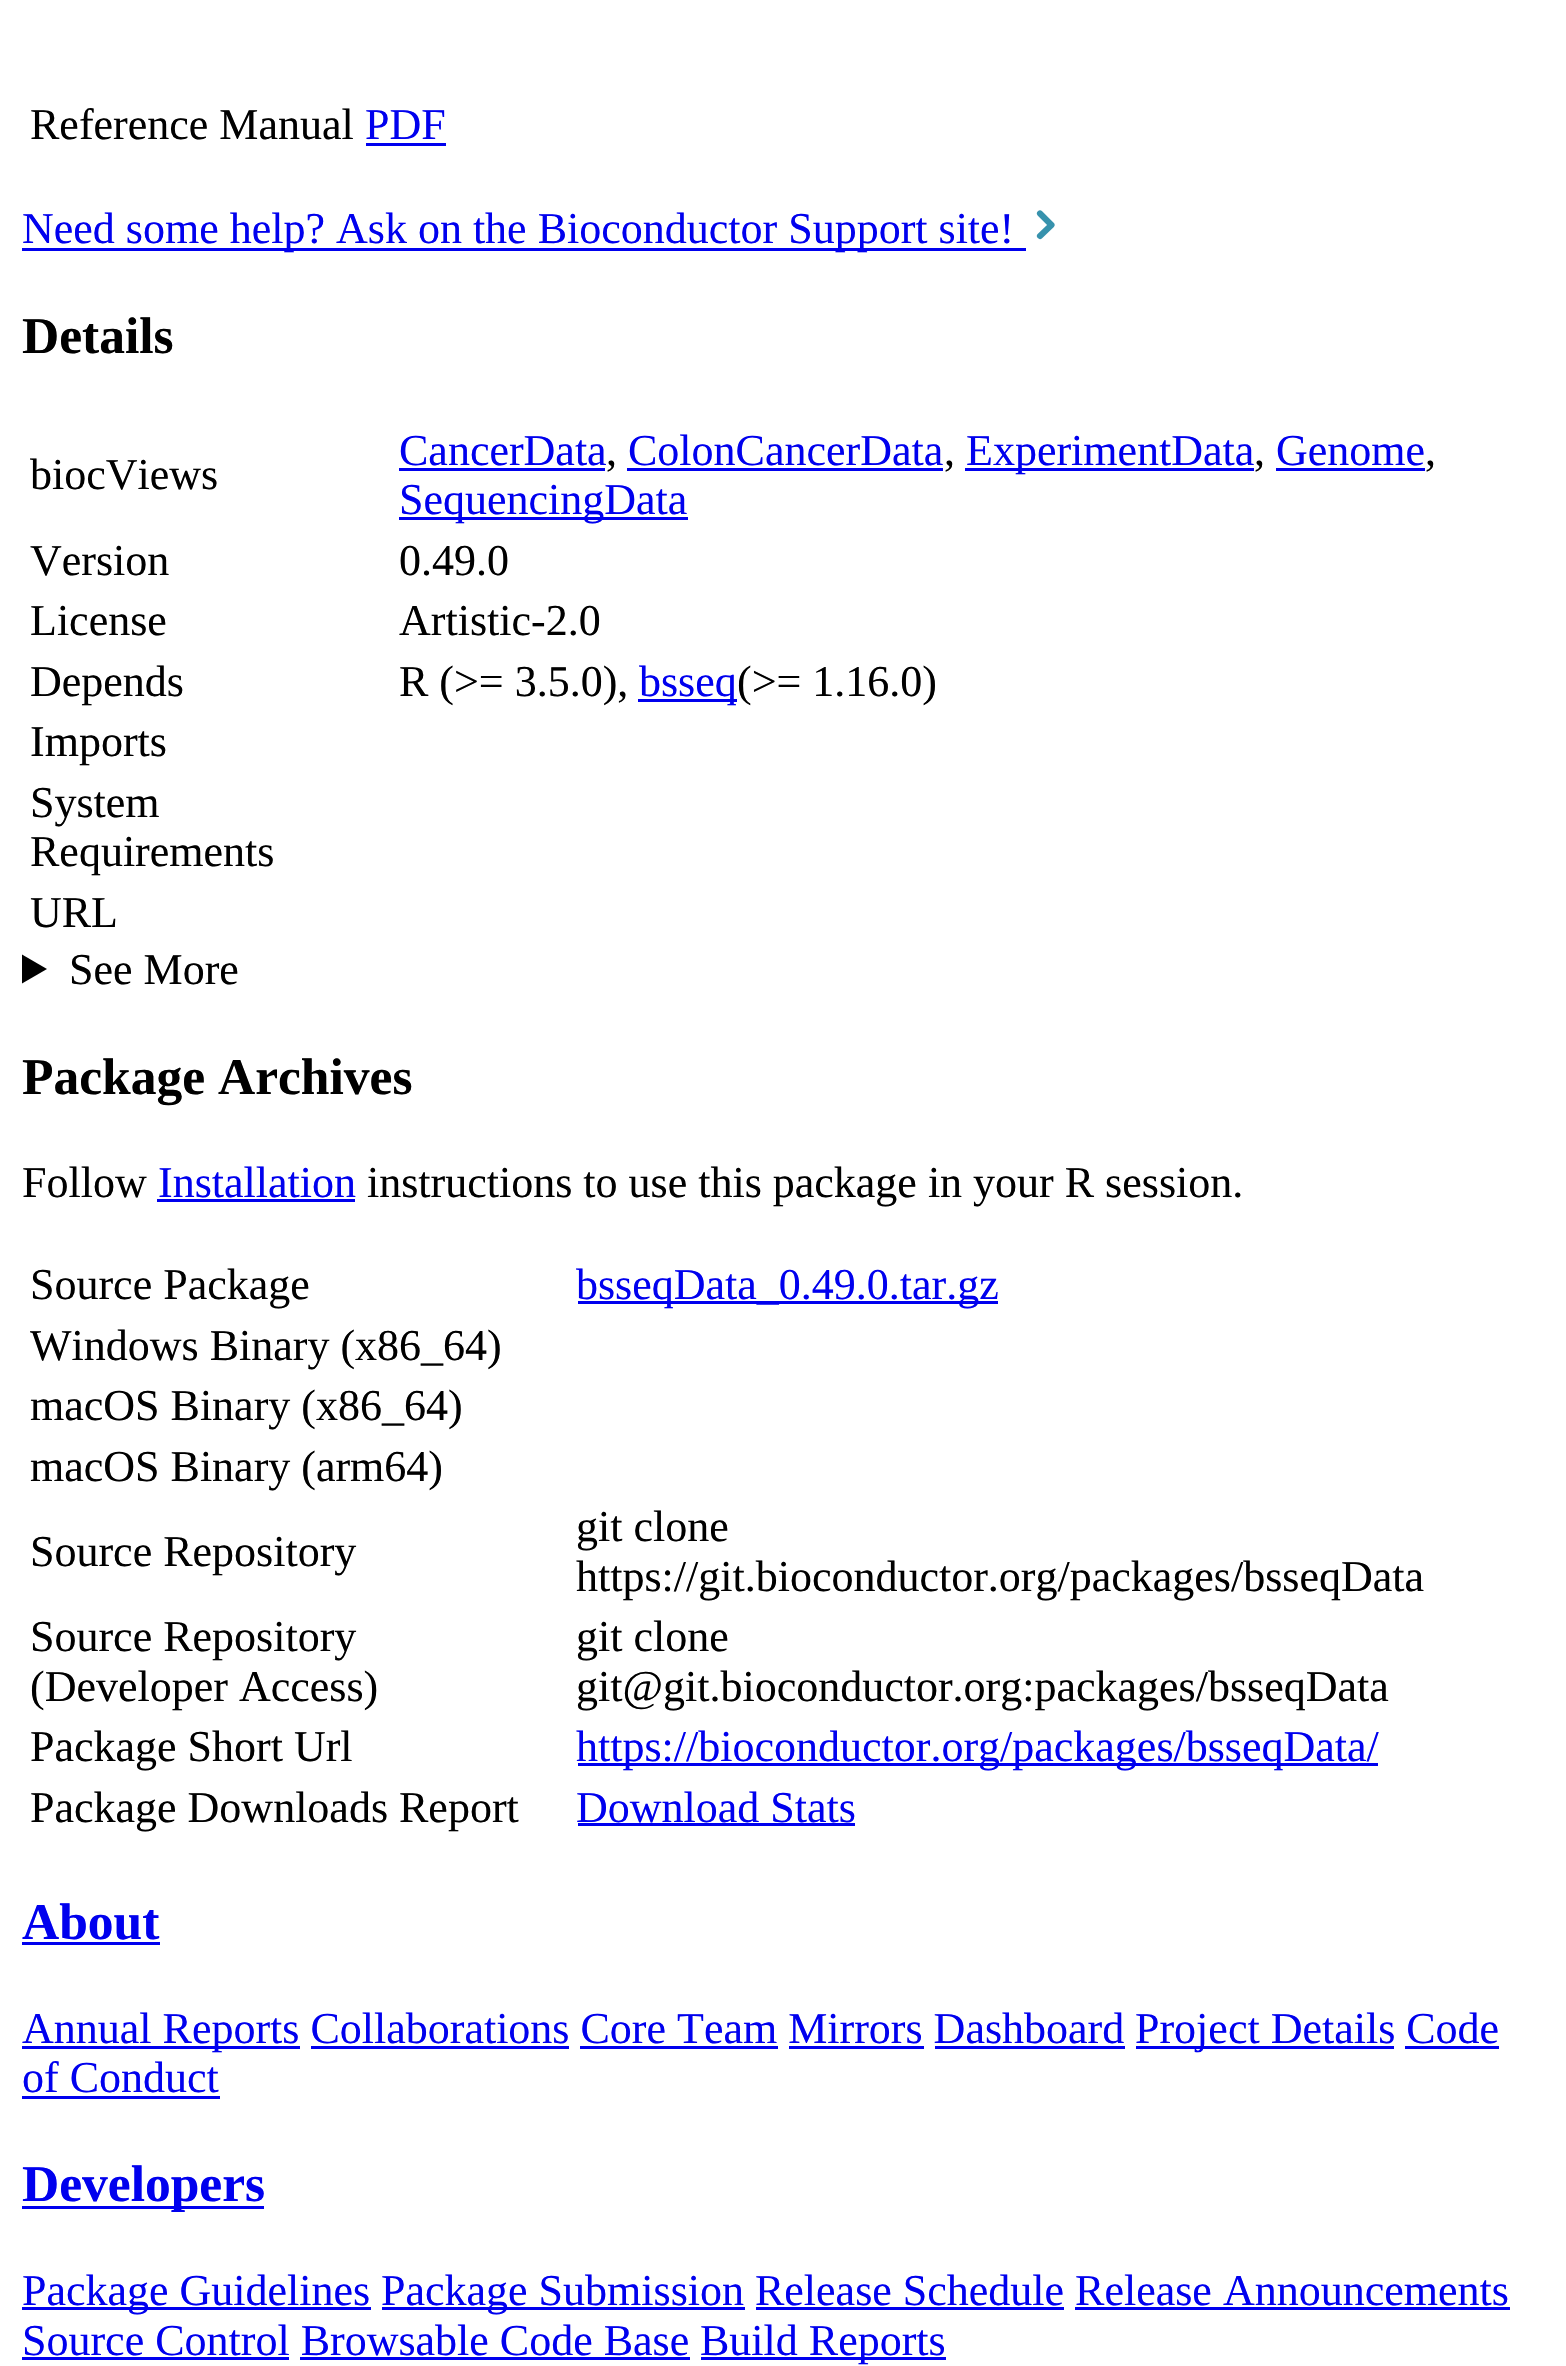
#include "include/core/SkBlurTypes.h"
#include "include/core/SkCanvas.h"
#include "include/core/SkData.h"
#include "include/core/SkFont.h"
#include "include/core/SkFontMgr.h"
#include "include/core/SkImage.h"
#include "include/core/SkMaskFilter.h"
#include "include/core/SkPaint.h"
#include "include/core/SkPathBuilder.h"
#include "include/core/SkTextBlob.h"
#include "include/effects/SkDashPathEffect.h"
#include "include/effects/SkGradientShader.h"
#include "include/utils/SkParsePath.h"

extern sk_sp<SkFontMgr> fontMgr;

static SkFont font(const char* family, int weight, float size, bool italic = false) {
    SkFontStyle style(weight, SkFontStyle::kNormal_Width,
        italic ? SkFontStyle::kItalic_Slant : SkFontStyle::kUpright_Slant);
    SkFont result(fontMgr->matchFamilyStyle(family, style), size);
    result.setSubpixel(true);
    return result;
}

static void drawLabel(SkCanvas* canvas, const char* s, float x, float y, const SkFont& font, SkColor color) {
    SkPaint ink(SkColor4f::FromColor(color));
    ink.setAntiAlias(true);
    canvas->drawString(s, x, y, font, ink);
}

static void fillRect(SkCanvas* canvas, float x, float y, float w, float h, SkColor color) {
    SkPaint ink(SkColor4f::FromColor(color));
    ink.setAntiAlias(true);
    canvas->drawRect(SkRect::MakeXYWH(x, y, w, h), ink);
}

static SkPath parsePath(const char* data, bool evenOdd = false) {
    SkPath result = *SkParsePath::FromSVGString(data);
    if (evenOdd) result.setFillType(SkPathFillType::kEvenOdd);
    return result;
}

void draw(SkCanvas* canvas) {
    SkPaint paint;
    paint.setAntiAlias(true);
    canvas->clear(0xFFFFFFFF);
    SkFont font1 = font("Liberation Serif", 400, 44);
    drawLabel(canvas, "Reference Manual", 30, 139, font1, 0xFF000000);
    drawLabel(canvas, "PDF", 365, 139, font1, 0xFF0000EE);
    fillRect(canvas, 366, 143, 80, 3, 0xFF0000EE);
    fillRect(canvas, 22, 248, 1004, 3, 0xFF0000EE);
    drawLabel(canvas, "Need some help? Ask on the Bioconductor Support site!", 22, 243, font1, 0xFF0000EE);
    paint.setStroke(true);
    paint.setStrokeWidth(6.1f);
    paint.setStrokeCap(SkPaint::kRound_Cap);
    paint.setStrokeJoin(SkPaint::kRound_Join);
    paint.setColor(0xFF3792AD);
    canvas->drawPath(parsePath("M1040 213.5L1051.5 225L1040 236"), paint);
    SkFont font2 = font("Liberation Serif", 700, 51.5f);
    drawLabel(canvas, "Details", 22, 353, font2, 0xFF000000);
    drawLabel(canvas, "biocViews", 30, 489, font1, 0xFF000000);
    drawLabel(canvas, "CancerData", 399, 465, font1, 0xFF0000EE);
    fillRect(canvas, 399, 468, 206, 3, 0xFF0000EE);
    drawLabel(canvas, ",", 606, 465, font1, 0xFF000000);
    drawLabel(canvas, "ColonCancerData", 628, 465, font1, 0xFF0000EE);
    fillRect(canvas, 627, 468, 316, 3, 0xFF0000EE);
    drawLabel(canvas, ",", 944, 465, font1, 0xFF000000);
    fillRect(canvas, 965, 468, 289, 3, 0xFF0000EE);
    drawLabel(canvas, "ExperimentData", 966, 465, font1, 0xFF0000EE);
    drawLabel(canvas, ",", 1254, 465, font1, 0xFF000000);
    drawLabel(canvas, "Genome", 1276, 465, font1, 0xFF0000EE);
    fillRect(canvas, 1276, 468, 149, 3, 0xFF0000EE);
    drawLabel(canvas, ",", 1425, 465, font1, 0xFF000000);
    fillRect(canvas, 399, 517, 289, 3, 0xFF0000EE);
    drawLabel(canvas, "SequencingData", 399, 514, font1, 0xFF0000EE);
    drawLabel(canvas, "Version", 30, 575, font1, 0xFF000000);
    drawLabel(canvas, "0.49.0", 399, 575, font1, 0xFF000000);
    drawLabel(canvas, "License", 30, 635, font1, 0xFF000000);
    drawLabel(canvas, "Artistic-2.0", 399, 635, font1, 0xFF000000);
    drawLabel(canvas, "Depends", 30, 696, font1, 0xFF000000);
    drawLabel(canvas, "R (>= 3.5.0),", 399, 696, font1, 0xFF000000);
    fillRect(canvas, 638, 699, 99, 3, 0xFF0000EE);
    drawLabel(canvas, "bsseq", 639, 696, font1, 0xFF0000EE);
    drawLabel(canvas, "(>= 1.16.0)", 737, 696, font1, 0xFF000000);
    drawLabel(canvas, "Imports", 30, 756, font1, 0xFF000000);
    drawLabel(canvas, "System", 30, 817, font1, 0xFF000000);
    drawLabel(canvas, "Requirements", 30, 866, font1, 0xFF000000);
    drawLabel(canvas, "URL", 30, 927, font1, 0xFF000000);
    paint.setStroke(false);
    paint.setColor(0xFF000000);
    canvas->drawPath(parsePath("M22 954.5L47 969L22 983.5Z"), paint);
    drawLabel(canvas, "See More", 69, 984, font1, 0xFF000000);
    drawLabel(canvas, "Package Archives", 22, 1094, font2, 0xFF000000);
    drawLabel(canvas, "Follow", 22, 1197, font1, 0xFF000000);
    drawLabel(canvas, "Installation", 158, 1197, font1, 0xFF0000EE);
    fillRect(canvas, 157, 1199, 198, 3, 0xFF0000EE);
    drawLabel(canvas, "instructions to use this package in your R session.", 367, 1197, font1, 0xFF000000);
    drawLabel(canvas, "Source Package", 30, 1299, font1, 0xFF000000);
    fillRect(canvas, 578, 1301, 420, 3, 0xFF0000EE);
    drawLabel(canvas, "bsseqData_0.49.0.tar.gz", 576, 1299, font1, 0xFF0000EE);
    drawLabel(canvas, "Windows Binary (x86_64)", 30, 1360, font1, 0xFF000000);
    drawLabel(canvas, "macOS Binary (x86_64)", 30, 1420, font1, 0xFF000000);
    drawLabel(canvas, "macOS Binary (arm64)", 30, 1481, font1, 0xFF000000);
    drawLabel(canvas, "Source Repository", 30, 1566, font1, 0xFF000000);
    drawLabel(canvas, "git clone", 576, 1541, font1, 0xFF000000);
    drawLabel(canvas, "https://git.bioconductor.org/packages/bsseqData", 576, 1591, font1, 0xFF000000);
    drawLabel(canvas, "Source Repository", 30, 1651, font1, 0xFF000000);
    drawLabel(canvas, "(Developer Access)", 30, 1701, font1, 0xFF000000);
    drawLabel(canvas, "git clone", 576, 1651, font1, 0xFF000000);
    drawLabel(canvas, "git@git.bioconductor.org:packages/bsseqData", 576, 1701, font1, 0xFF000000);
    drawLabel(canvas, "Package Short Url", 30, 1761, font1, 0xFF000000);
    fillRect(canvas, 578, 1763, 800, 3, 0xFF0000EE);
    drawLabel(canvas, "https://bioconductor.org/packages/bsseqData/", 576, 1761, font1, 0xFF0000EE);
    drawLabel(canvas, "Package Downloads Report", 30, 1822, font1, 0xFF000000);
    drawLabel(canvas, "Download Stats", 576, 1822, font1, 0xFF0000EE);
    fillRect(canvas, 578, 1823, 277, 3, 0xFF0000EE);
    drawLabel(canvas, "About", 22, 1939, font2, 0xFF0000EE);
    fillRect(canvas, 22, 1942, 138, 3, 0xFF0000EE);
    fillRect(canvas, 22, 2046, 278, 3, 0xFF0000EE);
    drawLabel(canvas, "Annual Reports Collaborations Core Team Mirrors Dashboard", 22, 2043, font1, 0xFF0000EE);
    fillRect(canvas, 1136, 2046, 258, 3, 0xFF0000EE);
    drawLabel(canvas, "Project Details Code", 1135, 2043, font1, 0xFF0000EE);
    fillRect(canvas, 311, 2046, 258, 3, 0xFF0000EE);
    fillRect(canvas, 580, 2046, 198, 3, 0xFF0000EE);
    fillRect(canvas, 789, 2046, 135, 3, 0xFF0000EE);
    fillRect(canvas, 935, 2046, 190, 3, 0xFF0000EE);
    drawLabel(canvas, "of Conduct", 22, 2092, font1, 0xFF0000EE);
    fillRect(canvas, 1405, 2046, 94, 3, 0xFF0000EE);
    fillRect(canvas, 22, 2096, 198, 3, 0xFF0000EE);
    fillRect(canvas, 22, 2206, 242, 3, 0xFF0000EE);
    drawLabel(canvas, "Developers", 22, 2201, font2, 0xFF0000EE);
    fillRect(canvas, 22, 2307, 349, 3, 0xFF0000EE);
    drawLabel(canvas, "Package Guidelines", 22, 2305, font1, 0xFF0000EE);
    fillRect(canvas, 382, 2307, 363, 3, 0xFF0000EE);
    drawLabel(canvas, "Package Submission Release Schedule Release Announcements", 381, 2305, font1, 0xFF0000EE);
    fillRect(canvas, 756, 2307, 308, 3, 0xFF0000EE);
    fillRect(canvas, 1075, 2307, 435, 3, 0xFF0000EE);
    drawLabel(canvas, "Source Control Browsable Code Base", 22, 2355, font1, 0xFF0000EE);
    fillRect(canvas, 22, 2357, 267, 3, 0xFF0000EE);
    fillRect(canvas, 701, 2357, 245, 3, 0xFF0000EE);
    drawLabel(canvas, "Build Reports", 700, 2355, font1, 0xFF0000EE);
    fillRect(canvas, 300, 2357, 390, 3, 0xFF0000EE);
}
